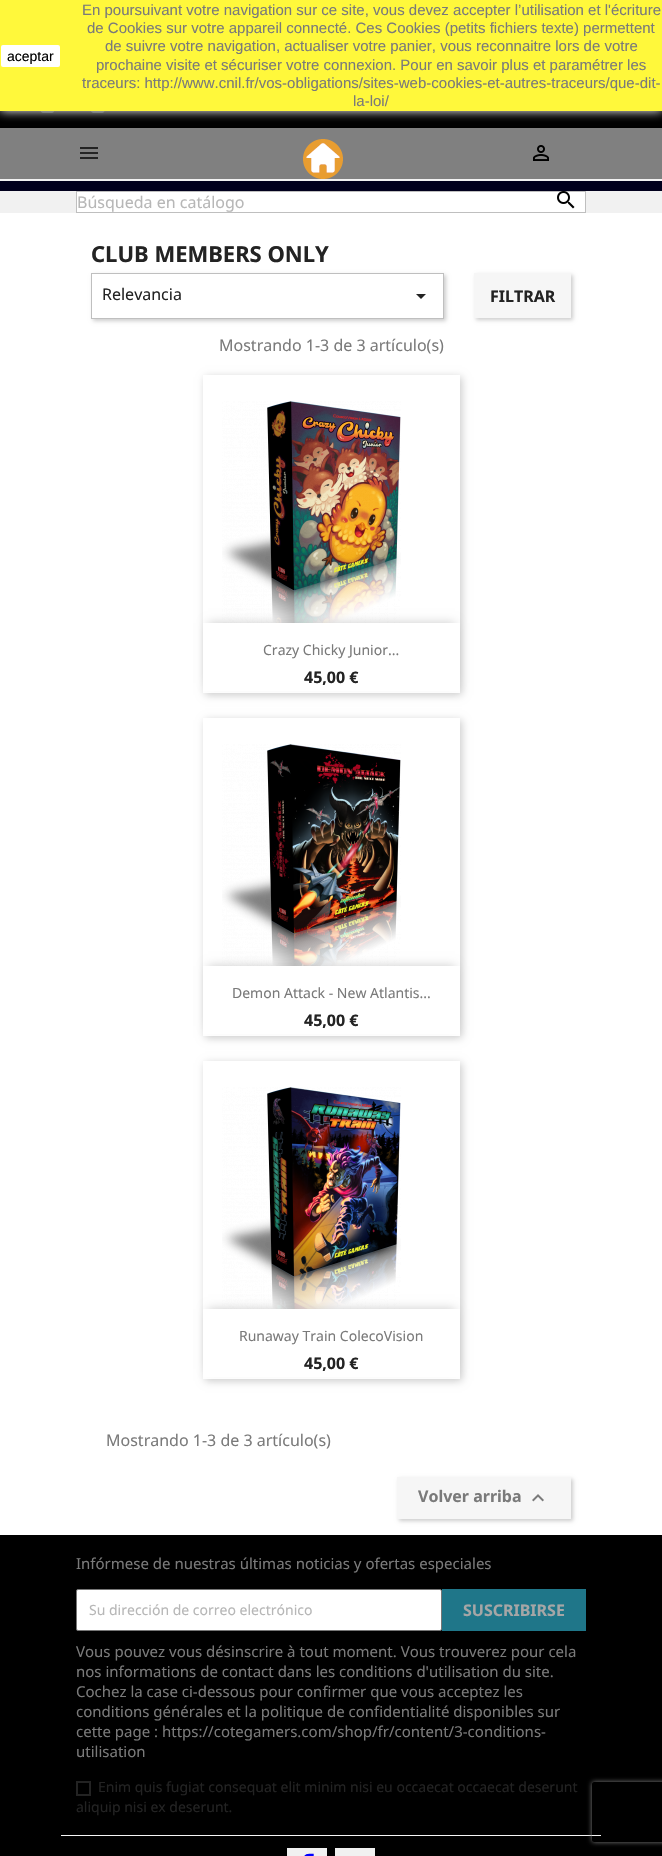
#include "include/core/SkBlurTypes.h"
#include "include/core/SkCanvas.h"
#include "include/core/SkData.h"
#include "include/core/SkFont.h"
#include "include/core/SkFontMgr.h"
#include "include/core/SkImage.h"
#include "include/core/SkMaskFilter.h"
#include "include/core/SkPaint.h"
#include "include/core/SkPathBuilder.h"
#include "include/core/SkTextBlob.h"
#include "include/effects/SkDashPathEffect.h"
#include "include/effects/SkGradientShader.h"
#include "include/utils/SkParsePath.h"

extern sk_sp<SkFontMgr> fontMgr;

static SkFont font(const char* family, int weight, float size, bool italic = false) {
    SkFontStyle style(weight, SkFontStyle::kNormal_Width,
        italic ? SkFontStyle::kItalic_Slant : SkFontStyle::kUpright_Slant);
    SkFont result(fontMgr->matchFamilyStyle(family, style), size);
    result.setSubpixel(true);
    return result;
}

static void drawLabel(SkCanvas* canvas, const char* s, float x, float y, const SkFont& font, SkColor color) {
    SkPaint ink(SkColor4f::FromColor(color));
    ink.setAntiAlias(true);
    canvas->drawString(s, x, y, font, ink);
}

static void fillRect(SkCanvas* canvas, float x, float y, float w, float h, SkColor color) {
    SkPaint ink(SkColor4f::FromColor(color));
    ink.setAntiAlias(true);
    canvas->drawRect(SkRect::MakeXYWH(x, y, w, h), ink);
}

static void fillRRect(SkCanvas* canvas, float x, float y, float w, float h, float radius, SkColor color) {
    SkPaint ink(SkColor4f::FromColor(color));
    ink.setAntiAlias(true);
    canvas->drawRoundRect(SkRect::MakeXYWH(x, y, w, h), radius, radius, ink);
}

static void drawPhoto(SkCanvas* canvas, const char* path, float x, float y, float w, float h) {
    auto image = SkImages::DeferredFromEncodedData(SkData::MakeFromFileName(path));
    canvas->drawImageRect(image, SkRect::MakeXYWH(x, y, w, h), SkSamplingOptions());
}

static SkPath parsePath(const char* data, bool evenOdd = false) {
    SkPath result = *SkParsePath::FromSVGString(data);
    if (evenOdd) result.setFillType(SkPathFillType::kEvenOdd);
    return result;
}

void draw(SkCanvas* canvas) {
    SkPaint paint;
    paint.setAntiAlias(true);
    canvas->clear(0xFFFFFFFF);
    fillRect(canvas, 0, 1535, 662, 321, 0xFF000000);
    fillRect(canvas, 0, 111, 662, 17, 0xFF000000);
    drawPhoto(canvas, "assets/img10.png", 16, 111, 625, 2);
    paint.setColor(0xFFFFFFFF);
    paint.setMaskFilter(SkMaskFilter::MakeBlur(kNormal_SkBlurStyle, 5));
    canvas->drawRect(SkRect::MakeXYWH(0, 0, 662, 111), paint);
    paint.setMaskFilter(nullptr);
    fillRect(canvas, 0, 0, 662, 111, 0xFFFFF83B);
    fillRRect(canvas, 1, 45, 59, 22, 2, 0xFFFFFFFF);
    SkFont font1 = font("Liberation Sans", 400, 14);
    drawLabel(canvas, "aceptar", 7, 61, font1, 0xFF000000);
    SkFont font2 = font("Liberation Sans", 400, 15);
    drawLabel(canvas, "En poursuivant votre navigation sur ce site, vous devez accepter l’utilisation et l'écriture", 82, 15, font2, 0xFF7A7A7A);
    drawLabel(canvas, "de Cookies sur votre appareil connecté. Ces Cookies (petits fichiers texte) permettent", 87, 33, font2, 0xFF7A7A7A);
    drawLabel(canvas, "de suivre votre navigation, actualiser votre panier, vous reconnaitre lors de votre", 105, 51, font2, 0xFF7A7A7A);
    drawLabel(canvas, "prochaine visite et sécuriser votre connexion. Pour en savoir plus et paramétrer les", 96, 70, font2, 0xFF7A7A7A);
    drawLabel(canvas, "traceurs: http://www.cnil.fr/vos-obligations/sites-web-cookies-et-autres-traceurs/que-dit-", 82, 88, font2, 0xFF7A7A7A);
    drawLabel(canvas, "la-loi/", 353, 106, font2, 0xFF7A7A7A);
    fillRect(canvas, 61, 1835, 540, 1, 0xFFF6F6F6);
    SkFont font3 = font("Noto Sans", 400, 15);
    drawLabel(canvas, "Infórmese de nuestras últimas noticias y ofertas especiales", 76, 1569, font3, 0xFF7A7A7A);
    canvas->drawRoundRect(SkRect::MakeXYWH(76.5f, 1589.5f, 365, 41), 1.5f, 1.5f, paint);
    paint.setStroke(true);
    paint.setStrokeWidth(1);
    paint.setColor(0xFF767676);
    canvas->drawRoundRect(SkRect::MakeXYWH(76.5f, 1589.5f, 365, 41), 1.5f, 1.5f, paint);
    SkFont font4 = font("Noto Sans", 400, 14);
    drawLabel(canvas, "Su dirección de correo electrónico", 89, 1615, font4, 0xFFB7B7B7);
    fillRect(canvas, 442, 1589, 144, 42, 0xFF1F7689);
    SkFont font5 = font("Noto Sans", 700, 16);
    drawLabel(canvas, "SUSCRIBIRSE", 463, 1616, font5, 0xFFA6A6A6);
    drawLabel(canvas, "Vous pouvez vous désinscrire à tout moment. Vous trouverez pour cela", 76, 1657, font3, 0xFF7A7A7A);
    drawLabel(canvas, "nos informations de contact dans les conditions d'utilisation du site.", 76, 1677, font3, 0xFF7A7A7A);
    drawLabel(canvas, "Cochez la case ci-dessous pour confirmer que vous acceptez les", 76, 1697, font3, 0xFF7A7A7A);
    drawLabel(canvas, "conditions générales et la politique de confidentialité disponibles sur", 76, 1717, font3, 0xFF7A7A7A);
    drawLabel(canvas, "cette page : https://cotegamers.com/shop/fr/content/3-conditions-", 76, 1737, font3, 0xFF7A7A7A);
    drawLabel(canvas, "utilisation", 76, 1757, font3, 0xFF7A7A7A);
    paint.setStrokeWidth(2);
    paint.setColor(0xFF232323);
    canvas->drawRect(SkRect::MakeXYWH(77, 1782, 13, 13), paint);
    drawLabel(canvas, "Enim quis fugiat consequat elit minim nisi eu occaecat occaecat deserunt", 98, 1792, font4, 0xFF232323);
    drawLabel(canvas, "aliquip nisi ex deserunt.", 76, 1812, font4, 0xFF232323);
    fillRect(canvas, 287, 1848, 40, 8, 0xFFF1F1F1);
    drawPhoto(canvas, "assets/img1.png", 304, 1853, 10, 3);
    fillRect(canvas, 335, 1848, 40, 8, 0xFFF1F1F1);
    fillRect(canvas, 0, 181, 662, 10, 0xFF01001D);
    fillRect(canvas, 0, 128, 662, 51, 0xFF808080);
    fillRect(canvas, 0, 179, 662, 2, 0xFFF1F1F1);
    drawPhoto(canvas, "assets/img2.png", 80, 147, 18, 12);
    drawPhoto(canvas, "assets/img3.png", 303, 139, 40, 40);
    drawPhoto(canvas, "assets/img4.png", 533, 145, 16, 16);
    fillRect(canvas, 0, 191, 662, 22, 0xFFF1F1F1);
    paint.setStroke(false);
    paint.setColor(0xFFFFFFFF);
    canvas->drawRect(SkRect::MakeXYWH(76.5f, 191.5f, 509, 21), paint);
    paint.setStroke(true);
    paint.setStrokeWidth(1);
    paint.setColor(0xFFBFBFBF);
    canvas->drawRect(SkRect::MakeXYWH(76.5f, 191.5f, 509, 21), paint);
    SkFont font6 = font("Noto Sans", 400, 16);
    drawLabel(canvas, "Búsqueda en catálogo", 77, 208, font6, 0xFFB7B7B7);
    drawPhoto(canvas, "assets/img5.png", 557, 191, 18, 18);
    SkFont font7 = font("Noto Sans", 700, 22);
    drawLabel(canvas, "CLUB MEMBERS ONLY", 91, 262, font7, 0xFF232323);
    canvas->save();
    canvas->clipPath(parsePath("M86 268H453V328H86ZM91 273H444V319H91Z", true), true);
    paint.setStroke(false);
    paint.setColor(0x33000000);
    paint.setMaskFilter(SkMaskFilter::MakeBlur(kNormal_SkBlurStyle, 2));
    canvas->drawRect(SkRect::MakeXYWH(93, 275, 353, 46), paint);
    paint.setMaskFilter(nullptr);
    canvas->restore();
    paint.setStroke(true);
    paint.setColor(0xFFBFBFBF);
    canvas->drawRect(SkRect::MakeXYWH(91.5f, 273.5f, 352, 45), paint);
    drawLabel(canvas, "Relevancia", 102, 300, font6, 0xFF232323);
    paint.setStroke(false);
    paint.setColor(0xFF232323);
    canvas->drawPath(parsePath("M416 294H426L421 299Z"), paint);
    paint.setColor(0x33000000);
    paint.setMaskFilter(SkMaskFilter::MakeBlur(kNormal_SkBlurStyle, 2));
    canvas->drawRect(SkRect::MakeXYWH(476, 275, 97, 45), paint);
    paint.setMaskFilter(nullptr);
    fillRect(canvas, 474, 273, 97, 45, 0xFFF6F6F6);
    drawLabel(canvas, "FILTRAR", 490, 302, font5, 0xFF232323);
    drawLabel(canvas, "Mostrando 1-3 de 3 artículo(s)", 219, 351, font6, 0xFF7A7A7A);
    canvas->save();
    canvas->clipPath(parsePath("M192 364H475V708H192ZM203 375H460V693H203Z", true), true);
    paint.setMaskFilter(SkMaskFilter::MakeBlur(kNormal_SkBlurStyle, 4));
    canvas->drawRect(SkRect::MakeXYWH(205, 377, 257, 318), paint);
    paint.setMaskFilter(nullptr);
    canvas->restore();
    drawPhoto(canvas, "assets/img6.png", 222, 401, 179, 222);
    paint.setMaskFilter(SkMaskFilter::MakeBlur(kNormal_SkBlurStyle, 5));
    canvas->drawRect(SkRect::MakeXYWH(208, 623, 247, 60), paint);
    paint.setMaskFilter(nullptr);
    fillRect(canvas, 203, 623, 257, 68, 0xFFFFFFFF);
    drawLabel(canvas, "Crazy Chicky Junior...", 263, 655, font4, 0xFF7A7A7A);
    drawLabel(canvas, "45,00 €", 304, 683, font5, 0xFF232323);
    canvas->save();
    canvas->clipPath(parsePath("M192 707H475V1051H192ZM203 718H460V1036H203Z", true), true);
    paint.setMaskFilter(SkMaskFilter::MakeBlur(kNormal_SkBlurStyle, 4));
    canvas->drawRect(SkRect::MakeXYWH(205, 720, 257, 318), paint);
    paint.setMaskFilter(nullptr);
    canvas->restore();
    drawPhoto(canvas, "assets/img7.png", 222, 744, 179, 222);
    paint.setMaskFilter(SkMaskFilter::MakeBlur(kNormal_SkBlurStyle, 5));
    canvas->drawRect(SkRect::MakeXYWH(208, 966, 247, 60), paint);
    paint.setMaskFilter(nullptr);
    fillRect(canvas, 203, 966, 257, 68, 0xFFFFFFFF);
    drawLabel(canvas, "Demon Attack - New Atlantis...", 232, 998, font4, 0xFF7A7A7A);
    drawLabel(canvas, "45,00 €", 304, 1026, font5, 0xFF232323);
    canvas->save();
    canvas->clipPath(parsePath("M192 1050H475V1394H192ZM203 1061H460V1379H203Z", true), true);
    paint.setMaskFilter(SkMaskFilter::MakeBlur(kNormal_SkBlurStyle, 4));
    canvas->drawRect(SkRect::MakeXYWH(205, 1063, 257, 318), paint);
    paint.setMaskFilter(nullptr);
    canvas->restore();
    drawPhoto(canvas, "assets/img8.png", 222, 1087, 179, 222);
    paint.setMaskFilter(SkMaskFilter::MakeBlur(kNormal_SkBlurStyle, 5));
    canvas->drawRect(SkRect::MakeXYWH(208, 1309, 247, 60), paint);
    paint.setMaskFilter(nullptr);
    fillRect(canvas, 203, 1309, 257, 68, 0xFFFFFFFF);
    drawLabel(canvas, "Runaway Train ColecoVision", 239, 1341, font4, 0xFF7A7A7A);
    drawLabel(canvas, "45,00 €", 304, 1369, font5, 0xFF232323);
    drawLabel(canvas, "Mostrando 1-3 de 3 artículo(s)", 106, 1446, font6, 0xFF7A7A7A);
    paint.setMaskFilter(SkMaskFilter::MakeBlur(kNormal_SkBlurStyle, 2));
    canvas->drawRect(SkRect::MakeXYWH(399, 1479, 174, 42), paint);
    paint.setMaskFilter(nullptr);
    fillRect(canvas, 397, 1477, 174, 42, 0xFFF6F6F6);
    drawLabel(canvas, "Volver arriba", 418, 1502, font5, 0xFF7A7A7A);
    drawPhoto(canvas, "assets/img9.png", 532, 1494, 12, 8);
    canvas->save();
    canvas->clipPath(parsePath("M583 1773H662V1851H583ZM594 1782H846C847 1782 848 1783 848 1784V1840C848 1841 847 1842 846 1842H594C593 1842 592 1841 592 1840V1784C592 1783 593 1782 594 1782Z", true), true);
    paint.setColor(0xFF808080);
    paint.setMaskFilter(SkMaskFilter::MakeBlur(kNormal_SkBlurStyle, 2.5f));
    canvas->drawRoundRect(SkRect::MakeXYWH(592, 1782, 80, 60), 2, 2, paint);
    paint.setMaskFilter(nullptr);
    canvas->restore();
}
